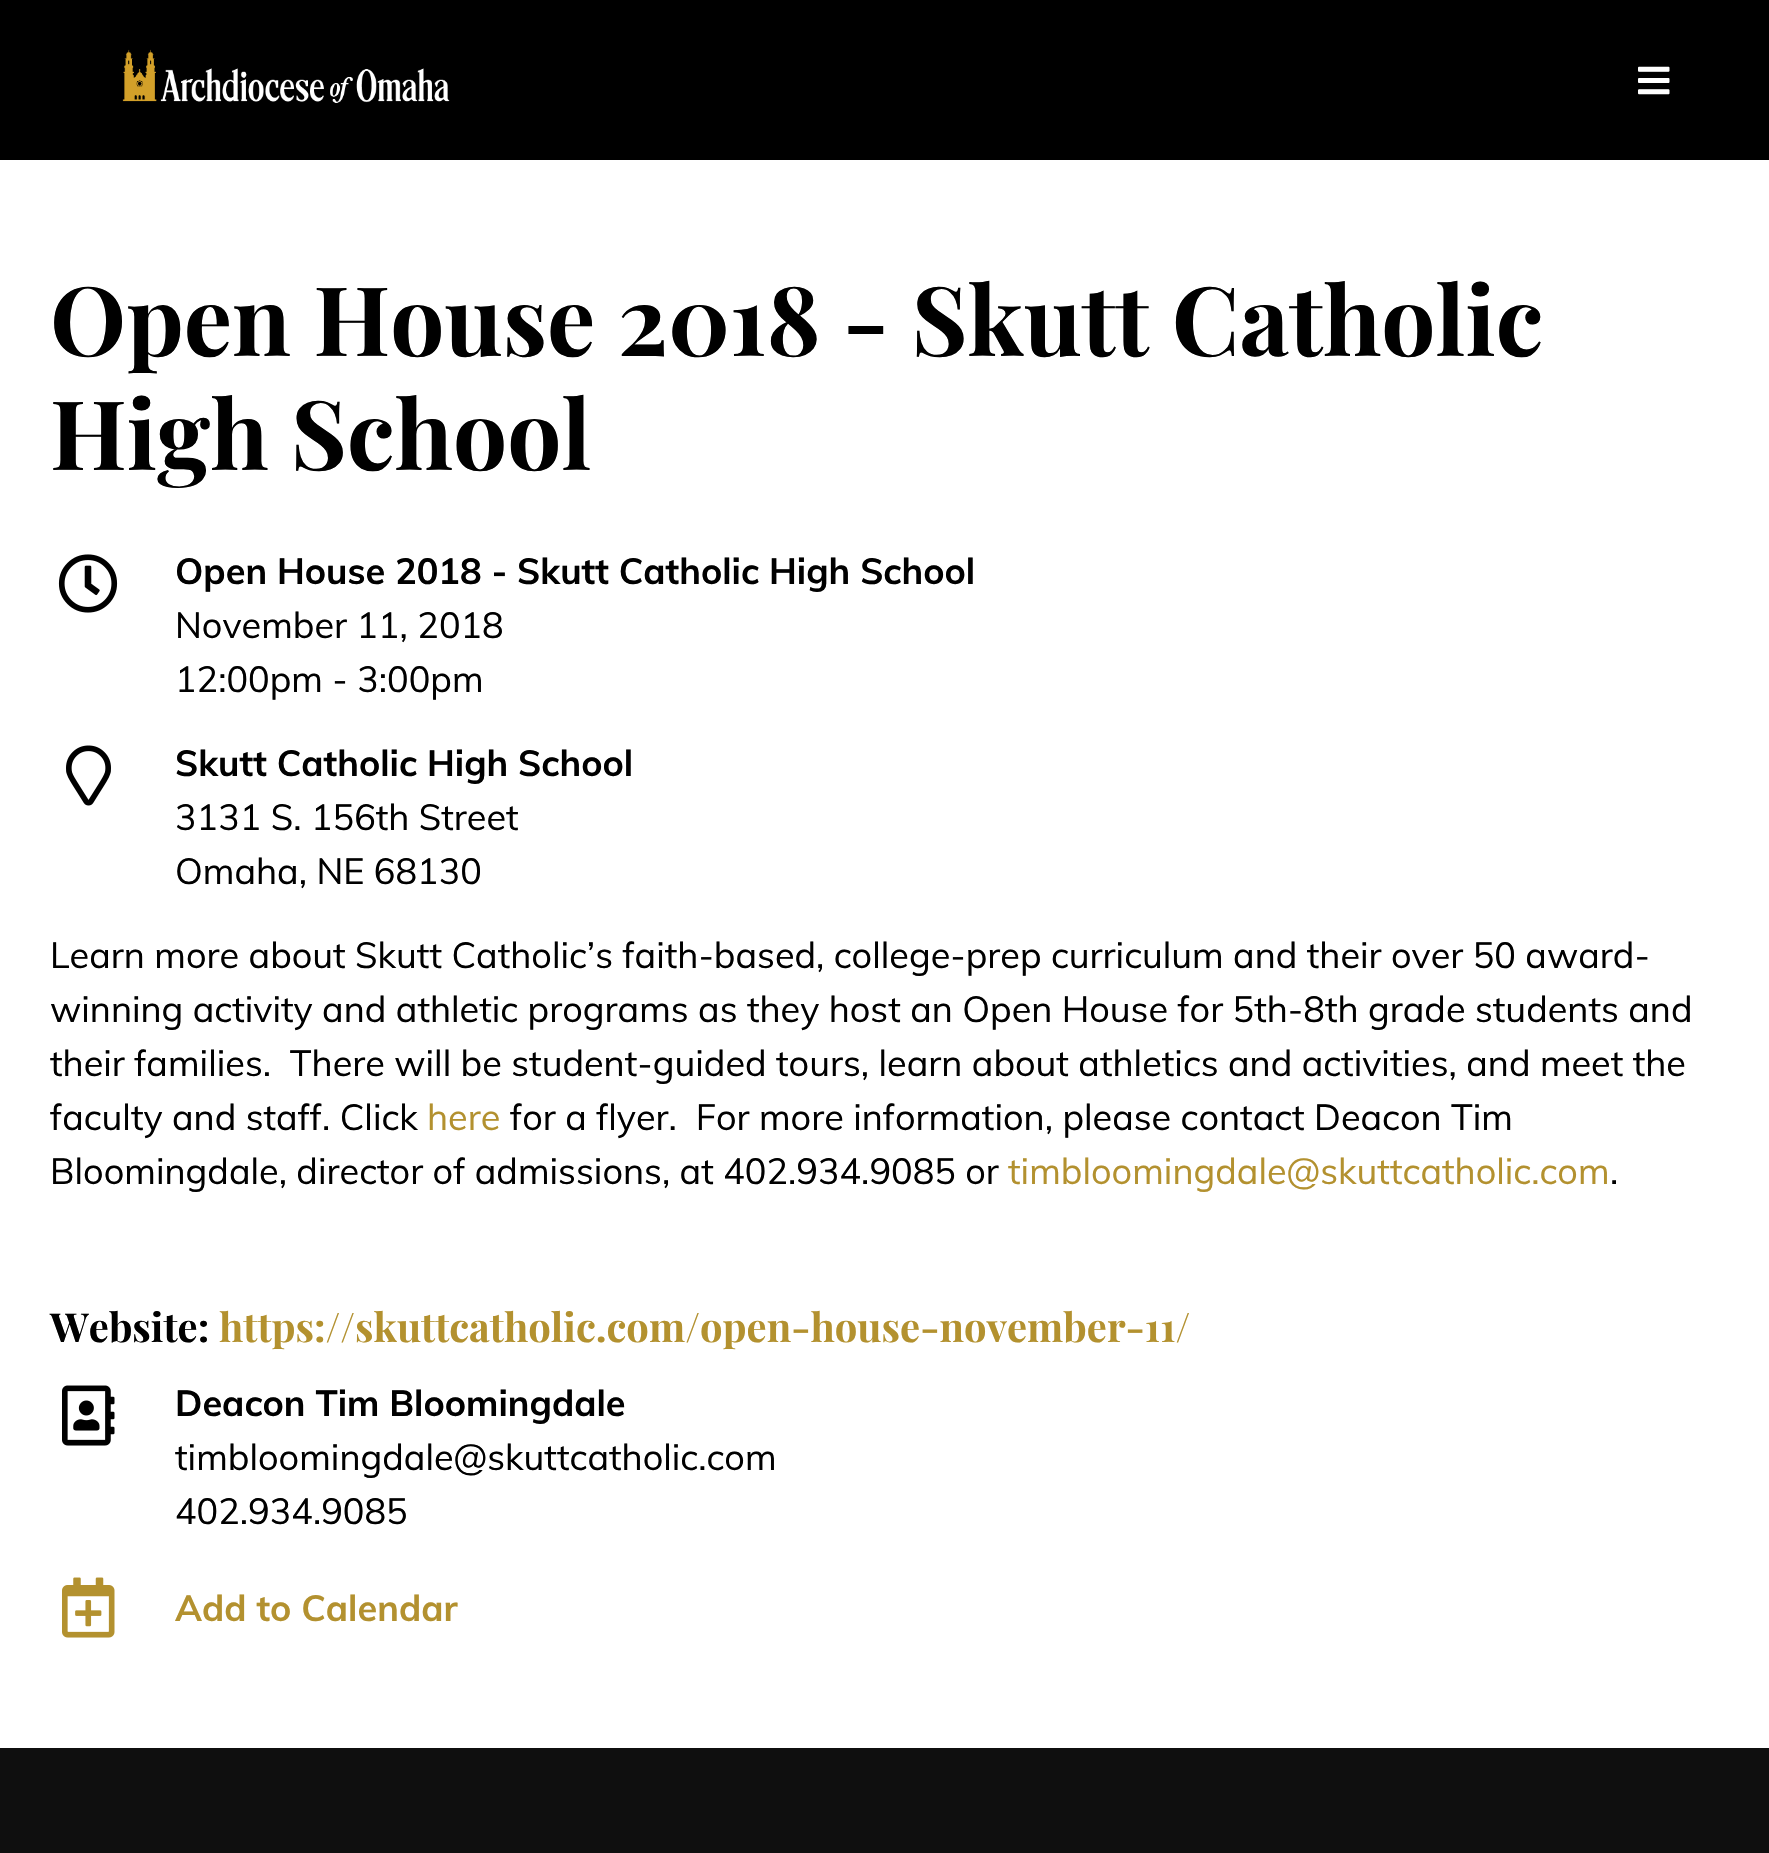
#include "include/core/SkBlurTypes.h"
#include "include/core/SkCanvas.h"
#include "include/core/SkData.h"
#include "include/core/SkFont.h"
#include "include/core/SkFontMgr.h"
#include "include/core/SkImage.h"
#include "include/core/SkMaskFilter.h"
#include "include/core/SkPaint.h"
#include "include/core/SkPathBuilder.h"
#include "include/core/SkTextBlob.h"
#include "include/effects/SkDashPathEffect.h"
#include "include/effects/SkGradientShader.h"
#include "include/utils/SkParsePath.h"

extern sk_sp<SkFontMgr> fontMgr;

static SkFont font(const char* family, int weight, float size, bool italic = false) {
    SkFontStyle style(weight, SkFontStyle::kNormal_Width,
        italic ? SkFontStyle::kItalic_Slant : SkFontStyle::kUpright_Slant);
    SkFont result(fontMgr->matchFamilyStyle(family, style), size);
    result.setSubpixel(true);
    return result;
}

static void drawLabel(SkCanvas* canvas, const char* s, float x, float y, const SkFont& font, SkColor color) {
    SkPaint ink(SkColor4f::FromColor(color));
    ink.setAntiAlias(true);
    canvas->drawString(s, x, y, font, ink);
}

static void fillRect(SkCanvas* canvas, float x, float y, float w, float h, SkColor color) {
    SkPaint ink(SkColor4f::FromColor(color));
    ink.setAntiAlias(true);
    canvas->drawRect(SkRect::MakeXYWH(x, y, w, h), ink);
}

static void drawPhoto(SkCanvas* canvas, const char* path, float x, float y, float w, float h) {
    auto image = SkImages::DeferredFromEncodedData(SkData::MakeFromFileName(path));
    canvas->drawImageRect(image, SkRect::MakeXYWH(x, y, w, h), SkSamplingOptions());
}

void draw(SkCanvas* canvas) {
    SkPaint paint;
    paint.setAntiAlias(true);
    canvas->clear(0xFFFFFFFF);
    fillRect(canvas, 0, 0, 1769, 160, 0xFF000000);
    drawPhoto(canvas, "assets/img1.png", 122, 49, 328, 54);
    drawPhoto(canvas, "assets/img2.png", 1638, 66, 32, 29);
    SkFont font1 = font("Playfair Display", 700, 96);
    drawLabel(canvas, "Open House 2018 - Skutt Catholic", 50, 356, font1, 0xFF000000);
    drawLabel(canvas, "High School", 50, 470, font1, 0xFF000000);
    drawPhoto(canvas, "assets/img3.png", 58, 554, 60, 59);
    SkFont font2 = font("Muli", 700, 36);
    drawLabel(canvas, "Open House 2018 - Skutt Catholic High School", 175, 584, font2, 0xFF000000);
    SkFont font3 = font("Muli", 400, 36);
    drawLabel(canvas, "November 11, 2018", 175, 638, font3, 0xFF000000);
    drawLabel(canvas, "12:00pm - 3:00pm", 175, 692, font3, 0xFF000000);
    drawPhoto(canvas, "assets/img4.png", 66, 745, 45, 61);
    drawLabel(canvas, "Skutt Catholic High School", 175, 776, font2, 0xFF000000);
    drawLabel(canvas, "3131 S. 156th Street", 175, 830, font3, 0xFF000000);
    drawLabel(canvas, "Omaha, NE 68130", 175, 884, font3, 0xFF000000);
    drawLabel(canvas, "Learn more about Skutt Catholic’s faith-based, college-prep curriculum and their over 50 award-", 50, 968, font3, 0xFF000000);
    drawLabel(canvas, "winning activity and athletic programs as they host an Open House for 5th-8th grade students and", 50, 1022, font3, 0xFF000000);
    drawLabel(canvas, "their families.  There will be student-guided tours, learn about athletics and activities, and meet the", 50, 1076, font3, 0xFF000000);
    drawLabel(canvas, "faculty and staff. Click", 50, 1130, font3, 0xFF000000);
    drawLabel(canvas, "here", 427, 1130, font3, 0xFFB3912F);
    drawLabel(canvas, "for a flyer.  For more information, please contact Deacon Tim", 510, 1130, font3, 0xFF000000);
    drawLabel(canvas, "Bloomingdale, director of admissions, at 402.934.9085 or", 50, 1184, font3, 0xFF000000);
    drawLabel(canvas, "timbloomingdale@skuttcatholic.com", 1008, 1184, font3, 0xFFB3912F);
    drawLabel(canvas, ".", 1610, 1184, font3, 0xFF000000);
    SkFont font4 = font("Playfair Display", 700, 40);
    drawLabel(canvas, "Website:", 50, 1342, font4, 0xFF000000);
    drawLabel(canvas, "https://skuttcatholic.com/open-house-november-11/", 219, 1342, font4, 0xFFB3912F);
    drawPhoto(canvas, "assets/img5.png", 62, 1385, 53, 61);
    drawLabel(canvas, "Deacon Tim Bloomingdale", 175, 1416, font2, 0xFF000000);
    drawLabel(canvas, "timbloomingdale@skuttcatholic.com", 175, 1470, font3, 0xFF000000);
    drawLabel(canvas, "402.934.9085", 175, 1524, font3, 0xFF000000);
    drawPhoto(canvas, "assets/img6.png", 62, 1577, 53, 61);
    drawLabel(canvas, "Add to Calendar", 175, 1621, font2, 0xFFB3912F);
    fillRect(canvas, 0, 1748, 1769, 105, 0xFF0F0F0F);
}
